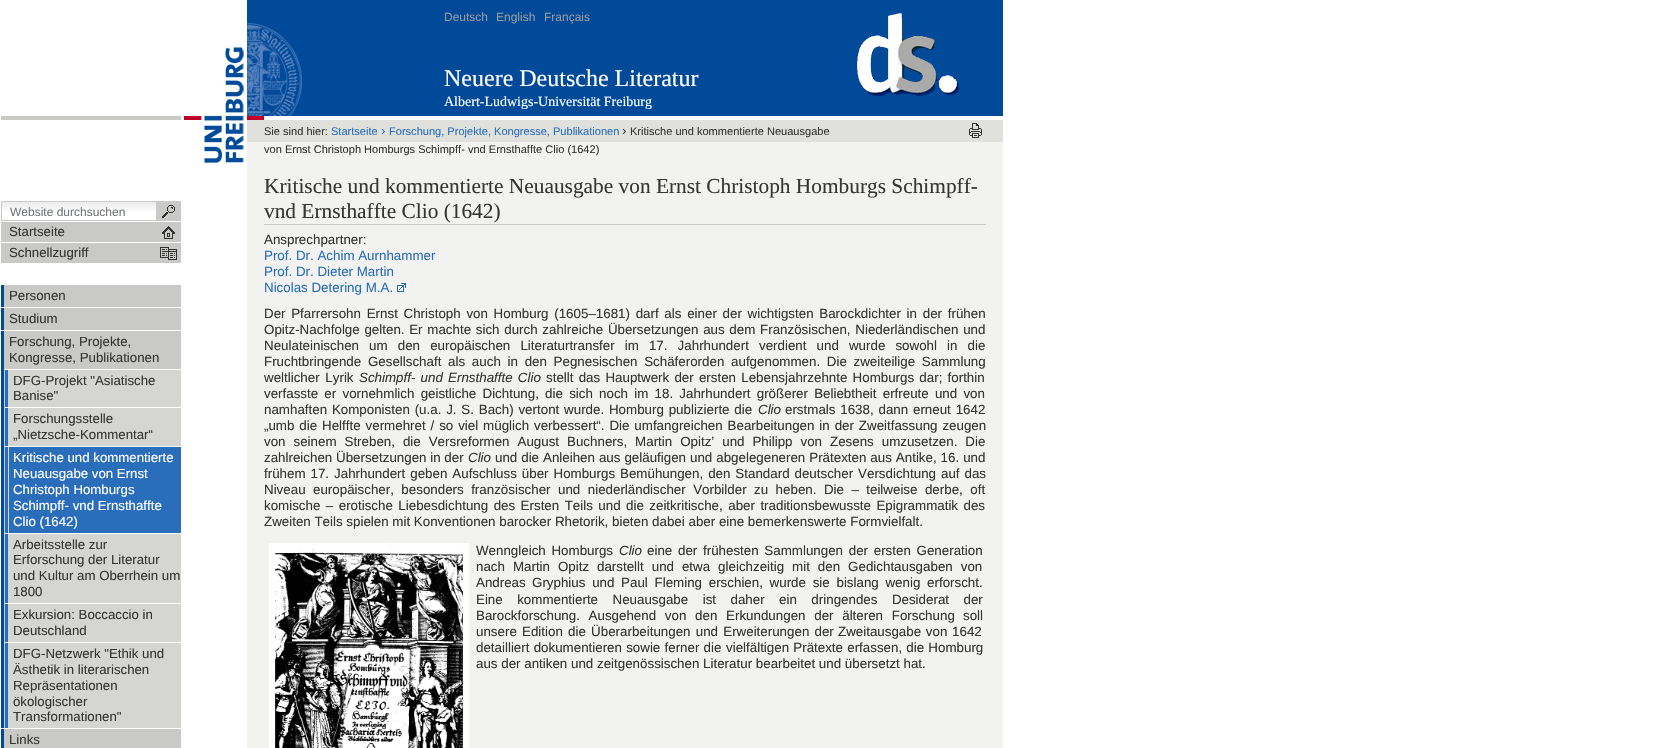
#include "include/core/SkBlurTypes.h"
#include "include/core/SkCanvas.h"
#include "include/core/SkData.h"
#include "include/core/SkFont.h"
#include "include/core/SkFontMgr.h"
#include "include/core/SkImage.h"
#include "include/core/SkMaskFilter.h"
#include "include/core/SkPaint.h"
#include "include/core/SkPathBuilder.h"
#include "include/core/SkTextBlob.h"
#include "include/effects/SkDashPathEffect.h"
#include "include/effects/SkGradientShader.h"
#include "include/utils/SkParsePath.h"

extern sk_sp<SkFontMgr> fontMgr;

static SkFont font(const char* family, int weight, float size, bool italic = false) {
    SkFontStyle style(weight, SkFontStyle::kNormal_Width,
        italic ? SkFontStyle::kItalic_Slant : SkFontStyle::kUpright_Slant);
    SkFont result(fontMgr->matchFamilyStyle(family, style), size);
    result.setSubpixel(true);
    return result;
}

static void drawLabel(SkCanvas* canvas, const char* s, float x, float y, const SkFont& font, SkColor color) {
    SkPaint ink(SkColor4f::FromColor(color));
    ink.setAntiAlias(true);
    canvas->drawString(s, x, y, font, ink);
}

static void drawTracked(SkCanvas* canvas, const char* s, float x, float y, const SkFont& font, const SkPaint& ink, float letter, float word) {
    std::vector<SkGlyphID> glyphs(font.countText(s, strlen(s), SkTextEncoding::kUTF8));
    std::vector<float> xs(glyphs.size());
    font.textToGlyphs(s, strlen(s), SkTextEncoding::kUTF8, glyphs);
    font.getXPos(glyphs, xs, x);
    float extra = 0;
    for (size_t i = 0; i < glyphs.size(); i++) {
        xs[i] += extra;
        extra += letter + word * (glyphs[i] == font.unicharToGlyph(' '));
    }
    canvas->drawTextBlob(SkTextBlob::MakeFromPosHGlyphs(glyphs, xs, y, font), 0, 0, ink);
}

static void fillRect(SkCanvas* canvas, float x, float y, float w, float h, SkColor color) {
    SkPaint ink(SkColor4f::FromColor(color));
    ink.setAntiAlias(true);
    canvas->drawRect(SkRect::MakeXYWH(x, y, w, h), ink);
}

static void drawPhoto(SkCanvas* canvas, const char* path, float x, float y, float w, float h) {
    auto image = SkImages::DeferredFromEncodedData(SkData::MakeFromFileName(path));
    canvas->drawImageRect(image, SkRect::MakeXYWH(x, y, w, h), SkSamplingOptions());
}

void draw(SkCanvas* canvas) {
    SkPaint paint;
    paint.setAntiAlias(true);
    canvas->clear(0xFFFFFFFF);
    drawPhoto(canvas, "assets/img1.png", 184, 47, 60, 116);
    fillRect(canvas, 247, 142, 756, 606, 0xFFF2F3F1);
    fillRect(canvas, 247, 0, 559, 116, 0xFF004A99);
    drawPhoto(canvas, "assets/img2.png", 247, 23, 55, 93);
    SkFont font1 = font("Liberation Sans", 400, 12);
    drawLabel(canvas, "Deutsch", 444, 21, font1, 0xFF9A9B9C);
    drawLabel(canvas, "English", 496, 21, font1, 0xFF9A9B9C);
    drawLabel(canvas, "Français", 544, 21, font1, 0xFF9A9B9C);
    drawPhoto(canvas, "assets/img3.png", 806, 0, 197, 116);
    SkFont font2 = font("Liberation Serif", 400, 24);
    drawLabel(canvas, "Neuere Deutsche Literatur", 444, 86, font2, 0xFFFFFFFF);
    SkFont font3 = font("Liberation Serif", 400, 14);
    drawLabel(canvas, "Albert-Ludwigs-Universität Freiburg", 444, 106, font3, 0xFFFFFFFF);
    fillRect(canvas, 247, 116, 17, 4, 0xFFC1002B);
    fillRect(canvas, 247, 120, 756, 22, 0xFFE0E1DD);
    SkFont font4 = font("Liberation Sans", 400, 11.05f);
    drawLabel(canvas, "Sie sind hier:", 264, 135, font4, 0xFF363534);
    drawLabel(canvas, "Startseite", 331, 135, font4, 0xFF2A6EBB);
    SkFont font5 = font("Liberation Sans", 400, 13.25f);
    drawLabel(canvas, "›", 381, 135, font5, 0xFF2A6EBB);
    drawLabel(canvas, "Forschung, Projekte, Kongresse, Publikationen", 389, 135, font4, 0xFF2A6EBB);
    drawLabel(canvas, "›", 622, 135, font5, 0xFF363534);
    drawLabel(canvas, "Kritische und kommentierte Neuausgabe", 630, 135, font4, 0xFF363534);
    drawLabel(canvas, "von Ernst Christoph Homburgs Schimpff- vnd Ernsthaffte Clio (1642)", 264, 153, font4, 0xFF363534);
    drawPhoto(canvas, "assets/img4.png", 969, 123, 13, 15);
    fillRect(canvas, 264, 224, 722, 1, 0xFFC9CAC8);
    SkFont font6 = font("Liberation Serif", 400, 21.35f);
    drawLabel(canvas, "Kritische und kommentierte Neuausgabe von Ernst Christoph Homburgs Schimpff-", 264, 193, font6, 0xFF363534);
    drawLabel(canvas, "vnd Ernsthaffte Clio (1642)", 264, 218, font6, 0xFF363534);
    SkFont font7 = font("Liberation Sans", 400, 13.35f);
    drawLabel(canvas, "Ansprechpartner:", 264, 244, font7, 0xFF363534);
    drawLabel(canvas, "Prof. Dr. Achim Aurnhammer", 264, 260, font7, 0xFF2A6EBB);
    drawLabel(canvas, "Prof. Dr. Dieter Martin", 264, 276, font7, 0xFF2A6EBB);
    drawLabel(canvas, "Nicolas Detering M.A.", 264, 292, font7, 0xFF2A6EBB);
    drawPhoto(canvas, "assets/img5.png", 397, 283, 9, 9);
    paint.setColor(0xFF363534);
    drawTracked(canvas, "Der Pfarrersohn Ernst Christoph von Homburg (1605–1681) darf als einer der wichtigsten Barockdichter in der frühen", 264, 318, font7, paint, 0, 2);
    drawTracked(canvas, "Opitz-Nachfolge gelten. Er machte sich durch zahlreiche Übersetzungen aus dem Französischen, Niederländischen und", 264, 334, font7, paint, 0, 1);
    drawTracked(canvas, "Neulateinischen um den europäischen Literaturtransfer im 17. Jahrhundert verdient und wurde sowohl in die", 264, 350, font7, paint, 0, 6.4f);
    drawTracked(canvas, "Fruchtbringende Gesellschaft als auch in den Pegnesischen Schäferorden aufgenommen. Die zweiteilige Sammlung", 264, 366, font7, paint, 0, 3);
    drawTracked(canvas, "weltlicher Lyrik", 264, 382, font7, paint, 0, 2);
    SkFont font8 = font("Liberation Sans", 400, 13.35f, true);
    drawTracked(canvas, "Schimpff- und Ernsthaffte Clio", 359, 382, font8, paint, 0, 1.5f);
    drawTracked(canvas, "stellt das Hauptwerk der ersten Lebensjahrzehnte Homburgs dar; forthin", 546, 382, font7, paint, 0, 1.5f);
    drawTracked(canvas, "verfasste er vornehmlich geistliche Dichtung, die sich noch im 18. Jahrhundert größerer Beliebtheit erfreute und von", 264, 398, font7, paint, 0, 2.5f);
    drawTracked(canvas, "namhaften Komponisten (u.a. J. S. Bach) vertont wurde. Homburg publizierte die", 264, 414, font7, paint, 0, 1.1f);
    drawLabel(canvas, "Clio", 758, 414, font8, 0xFF363534);
    drawTracked(canvas, "erstmals 1638, dann erneut 1642", 785, 414, font7, paint, 0, 1.1f);
    drawTracked(canvas, "„umb die Helffte vermehret / so viel müglich verbessert“. Die umfangreichen Bearbeitungen in der Zweitfassung zeugen", 264, 430, font7, paint, 0, 1.2f);
    drawTracked(canvas, "von seinem Streben, die Versreformen August Buchners, Martin Opitz’ und Philipp von Zesens umzusetzen. Die", 264, 446, font7, paint, 0, 4.25f);
    drawLabel(canvas, "zahlreichen Übersetzungen in der", 264, 462, font7, 0xFF363534);
    drawLabel(canvas, "Clio", 468, 462, font8, 0xFF363534);
    drawTracked(canvas, "und die Anleihen aus geläufigen und abgelegeneren Prätexten aus Antike, 16. und", 495, 462, font7, paint, 0, 0.25f);
    drawTracked(canvas, "frühem 17. Jahrhundert geben Aufschluss über Homburgs Bemühungen, den Standard deutscher Versdichtung auf das", 264, 478, font7, paint, 0, 1.25f);
    drawTracked(canvas, "Niveau europäischer, besonders französischer und niederländischer Vorbilder zu heben. Die – teilweise derbe, oft", 264, 494, font7, paint, 0, 3.75f);
    drawTracked(canvas, "komische – erotische Liebesdichtung des Ersten Teils und die zeitkritische, aber traditionsbewusste Epigrammatik des", 264, 510, font7, paint, 0, 1.75f);
    drawLabel(canvas, "Zweiten Teils spielen mit Konventionen barocker Rhetorik, bieten dabei aber eine bemerkenswerte Formvielfalt.", 264, 526, font7, 0xFF363534);
    drawPhoto(canvas, "assets/img6.png", 269, 543, 200, 205);
    drawTracked(canvas, "Wenngleich Homburgs", 476, 555, font7, paint, 0, 2);
    drawLabel(canvas, "Clio", 619, 555, font8, 0xFF363534);
    drawLabel(canvas, "eine", 647, 555, font7, 0xFF363534);
    drawTracked(canvas, "der frühesten Sammlungen der ersten Generation", 678, 555, font7, paint, 0, 2);
    drawTracked(canvas, "nach Martin Opitz", 476, 571, font7, paint, 0, 4.25f);
    drawTracked(canvas, "darstellt und etwa gleichzeitig mit den Gedichtausgaben von", 597, 571, font7, paint, 0, 4.25f);
    drawLabel(canvas, "Andreas", 476, 587, font7, 0xFF363534);
    drawTracked(canvas, "Gryphius und Paul Fleming erschien, wurde sie bislang wenig erforscht.", 532, 587, font7, paint, 0, 3);
    drawTracked(canvas, "Eine kommentierte Neuausgabe ist daher ein dringendes Desiderat der", 476, 604, font7, paint, 0, 10.75f);
    drawTracked(canvas, "Barockforschung. Ausgehend von den Erkundungen der älteren Forschung", 476, 620, font7, paint, 0, 5);
    drawLabel(canvas, "soll", 963, 620, font7, 0xFF363534);
    drawTracked(canvas, "unsere Edition die Überarbeitungen und Erweiterungen der", 476, 636, font7, paint, 0, 1.5f);
    drawTracked(canvas, "Zweitausgabe von 1642", 838, 636, font7, paint, 0, 1);
    drawTracked(canvas, "detailliert dokumentieren sowie ferner die", 476, 652, font7, paint, 0, 0.5f);
    drawTracked(canvas, "vielfältigen Prätexte erfassen, die Homburg", 726, 652, font7, paint, 0, 0.5f);
    drawLabel(canvas, "aus der antiken und zeitgenössischen Literatur bearbeitet und übersetzt hat.", 476, 668, font7, 0xFF363534);
    fillRect(canvas, 1, 116, 180, 4, 0xFFC9CAC8);
    drawPhoto(canvas, "assets/img7.png", 2, 202, 154, 9);
    paint.setStroke(true);
    paint.setStrokeWidth(1);
    paint.setColor(0xFFC9CAC8);
    canvas->drawRect(SkRect::MakeXYWH(1.5f, 201.5f, 155, 19), paint);
    drawLabel(canvas, "Website durchsuchen", 10, 216, font1, 0xFF747678);
    fillRect(canvas, 157, 201, 24, 20, 0xFFC9CAC8);
    drawPhoto(canvas, "assets/img8.png", 162, 205, 13, 13);
    fillRect(canvas, 1, 222, 180, 20, 0xFFC9CAC8);
    drawPhoto(canvas, "assets/img9.png", 162, 226, 13, 13);
    drawLabel(canvas, "Startseite", 9, 236, font5, 0xFF363534);
    fillRect(canvas, 1, 243, 180, 20, 0xFFC9CAC8);
    drawPhoto(canvas, "assets/img10.png", 160, 247, 17, 13);
    drawLabel(canvas, "Schnellzugriff", 9, 257, font5, 0xFF363534);
    fillRect(canvas, 4, 285, 177, 22, 0xFFC9CAC8);
    fillRect(canvas, 1, 285, 3, 463, 0xFF004A99);
    fillRect(canvas, 1, 307, 3, 1, 0xFFFFFFFF);
    drawLabel(canvas, "Personen", 9, 300, font5, 0xFF363534);
    fillRect(canvas, 4, 308, 177, 22, 0xFFC9CAC8);
    fillRect(canvas, 1, 330, 3, 1, 0xFFFFFFFF);
    drawLabel(canvas, "Studium", 9, 323, font5, 0xFF363534);
    fillRect(canvas, 4, 331, 177, 397, 0xFFC9CAC8);
    fillRect(canvas, 1, 728, 3, 1, 0xFFFFFFFF);
    drawLabel(canvas, "Forschung, Projekte,", 9, 346, font5, 0xFF363534);
    drawLabel(canvas, "Kongresse, Publikationen", 9, 362, font5, 0xFF363534);
    fillRect(canvas, 5, 369, 176, 1, 0xFFFFFFFF);
    drawPhoto(canvas, "assets/img11.png", 5, 370, 4, 37);
    fillRect(canvas, 5, 407, 176, 1, 0xFFFFFFFF);
    fillRect(canvas, 9, 370, 172, 37, 0xFFD5D6D2);
    drawLabel(canvas, "DFG-Projekt \"Asiatische", 13, 385, font5, 0xFF363534);
    drawLabel(canvas, "Banise\"", 13, 400, font5, 0xFF363534);
    drawPhoto(canvas, "assets/img12.png", 5, 408, 4, 38);
    fillRect(canvas, 5, 446, 176, 1, 0xFFFFFFFF);
    fillRect(canvas, 9, 408, 172, 38, 0xFFD5D6D2);
    drawLabel(canvas, "Forschungsstelle", 13, 423, font5, 0xFF363534);
    drawLabel(canvas, "„Nietzsche-Kommentar“", 13, 439, font5, 0xFF363534);
    drawPhoto(canvas, "assets/img13.png", 5, 447, 4, 86);
    fillRect(canvas, 5, 533, 176, 1, 0xFFFFFFFF);
    fillRect(canvas, 9, 447, 172, 86, 0xFF2A6EBB);
    drawLabel(canvas, "Kritische und kommentierte", 13, 462, font5, 0xFFFFFFFF);
    drawLabel(canvas, "Neuausgabe von Ernst", 13, 478, font5, 0xFFFFFFFF);
    drawLabel(canvas, "Christoph Homburgs", 13, 494, font5, 0xFFFFFFFF);
    drawLabel(canvas, "Schimpff- vnd Ernsthaffte", 13, 510, font5, 0xFFFFFFFF);
    drawLabel(canvas, "Clio (1642)", 13, 526, font5, 0xFFFFFFFF);
    drawPhoto(canvas, "assets/img14.png", 5, 534, 4, 69);
    fillRect(canvas, 5, 603, 176, 1, 0xFFFFFFFF);
    fillRect(canvas, 9, 534, 172, 69, 0xFFD5D6D2);
    drawLabel(canvas, "Arbeitsstelle zur", 13, 549, font5, 0xFF363534);
    drawLabel(canvas, "Erforschung der Literatur", 13, 564, font5, 0xFF363534);
    drawLabel(canvas, "und Kultur am Oberrhein um", 13, 580, font5, 0xFF363534);
    drawLabel(canvas, "1800", 13, 596, font5, 0xFF363534);
    drawPhoto(canvas, "assets/img12.png", 5, 604, 4, 38);
    fillRect(canvas, 5, 642, 176, 1, 0xFFFFFFFF);
    fillRect(canvas, 9, 604, 172, 38, 0xFFD5D6D2);
    drawLabel(canvas, "Exkursion: Boccaccio in", 13, 619, font5, 0xFF363534);
    drawLabel(canvas, "Deutschland", 13, 635, font5, 0xFF363534);
    drawPhoto(canvas, "assets/img15.png", 5, 643, 4, 85);
    fillRect(canvas, 9, 643, 172, 85, 0xFFD5D6D2);
    drawLabel(canvas, "DFG-Netzwerk \"Ethik und", 13, 658, font5, 0xFF363534);
    drawLabel(canvas, "Ästhetik in literarischen", 13, 674, font5, 0xFF363534);
    drawLabel(canvas, "Repräsentationen", 13, 690, font5, 0xFF363534);
    drawLabel(canvas, "ökologischer", 13, 706, font5, 0xFF363534);
    drawLabel(canvas, "Transformationen\"", 13, 721, font5, 0xFF363534);
    fillRect(canvas, 4, 729, 177, 19, 0xFFC9CAC8);
    drawLabel(canvas, "Links", 9, 744, font5, 0xFF363534);
}
